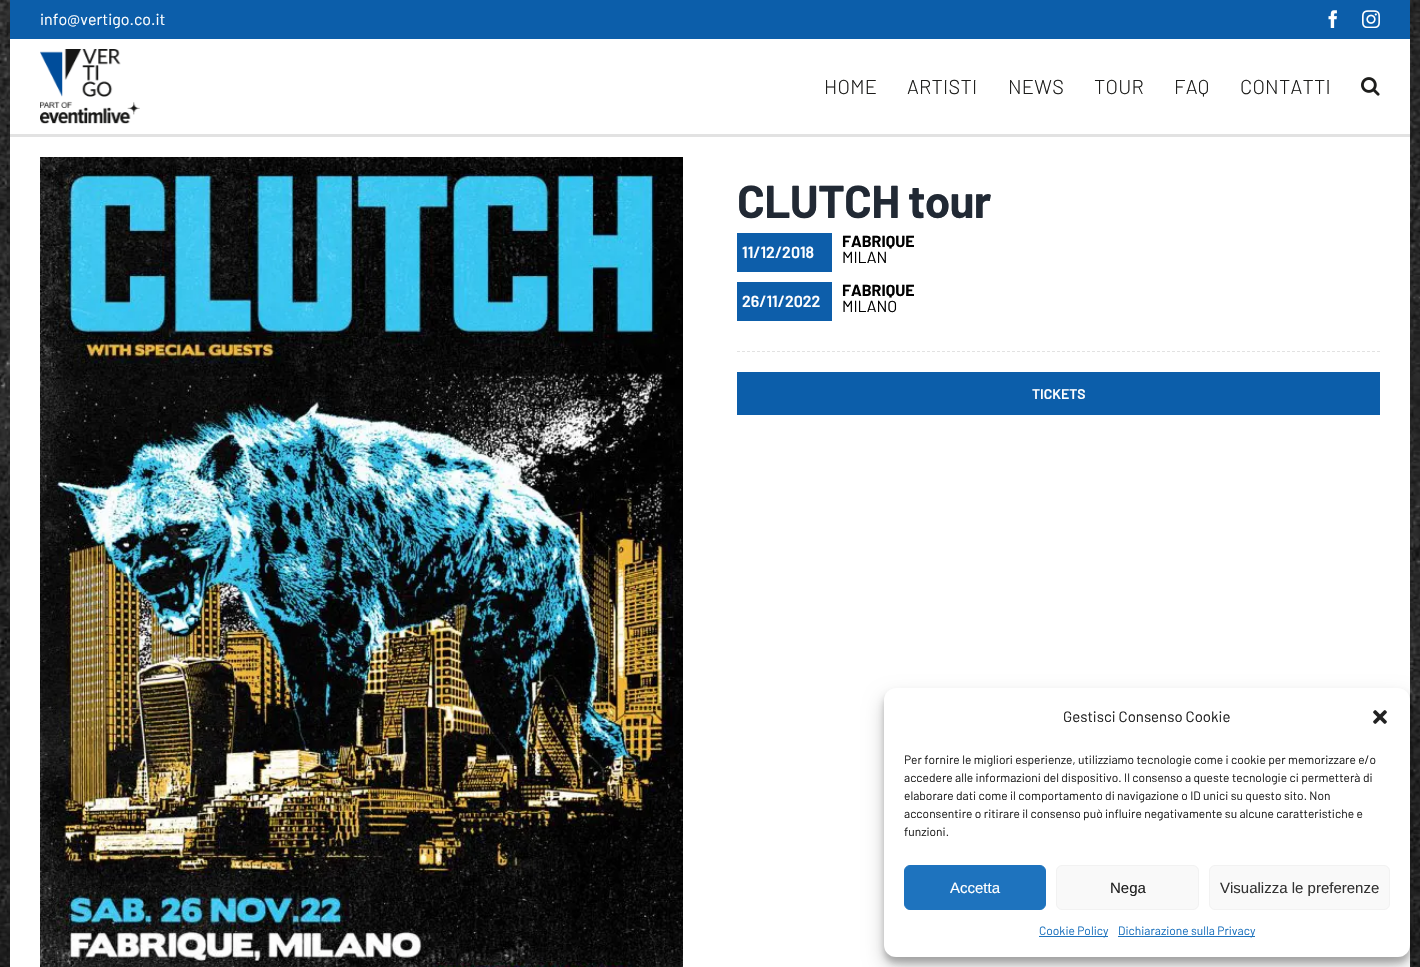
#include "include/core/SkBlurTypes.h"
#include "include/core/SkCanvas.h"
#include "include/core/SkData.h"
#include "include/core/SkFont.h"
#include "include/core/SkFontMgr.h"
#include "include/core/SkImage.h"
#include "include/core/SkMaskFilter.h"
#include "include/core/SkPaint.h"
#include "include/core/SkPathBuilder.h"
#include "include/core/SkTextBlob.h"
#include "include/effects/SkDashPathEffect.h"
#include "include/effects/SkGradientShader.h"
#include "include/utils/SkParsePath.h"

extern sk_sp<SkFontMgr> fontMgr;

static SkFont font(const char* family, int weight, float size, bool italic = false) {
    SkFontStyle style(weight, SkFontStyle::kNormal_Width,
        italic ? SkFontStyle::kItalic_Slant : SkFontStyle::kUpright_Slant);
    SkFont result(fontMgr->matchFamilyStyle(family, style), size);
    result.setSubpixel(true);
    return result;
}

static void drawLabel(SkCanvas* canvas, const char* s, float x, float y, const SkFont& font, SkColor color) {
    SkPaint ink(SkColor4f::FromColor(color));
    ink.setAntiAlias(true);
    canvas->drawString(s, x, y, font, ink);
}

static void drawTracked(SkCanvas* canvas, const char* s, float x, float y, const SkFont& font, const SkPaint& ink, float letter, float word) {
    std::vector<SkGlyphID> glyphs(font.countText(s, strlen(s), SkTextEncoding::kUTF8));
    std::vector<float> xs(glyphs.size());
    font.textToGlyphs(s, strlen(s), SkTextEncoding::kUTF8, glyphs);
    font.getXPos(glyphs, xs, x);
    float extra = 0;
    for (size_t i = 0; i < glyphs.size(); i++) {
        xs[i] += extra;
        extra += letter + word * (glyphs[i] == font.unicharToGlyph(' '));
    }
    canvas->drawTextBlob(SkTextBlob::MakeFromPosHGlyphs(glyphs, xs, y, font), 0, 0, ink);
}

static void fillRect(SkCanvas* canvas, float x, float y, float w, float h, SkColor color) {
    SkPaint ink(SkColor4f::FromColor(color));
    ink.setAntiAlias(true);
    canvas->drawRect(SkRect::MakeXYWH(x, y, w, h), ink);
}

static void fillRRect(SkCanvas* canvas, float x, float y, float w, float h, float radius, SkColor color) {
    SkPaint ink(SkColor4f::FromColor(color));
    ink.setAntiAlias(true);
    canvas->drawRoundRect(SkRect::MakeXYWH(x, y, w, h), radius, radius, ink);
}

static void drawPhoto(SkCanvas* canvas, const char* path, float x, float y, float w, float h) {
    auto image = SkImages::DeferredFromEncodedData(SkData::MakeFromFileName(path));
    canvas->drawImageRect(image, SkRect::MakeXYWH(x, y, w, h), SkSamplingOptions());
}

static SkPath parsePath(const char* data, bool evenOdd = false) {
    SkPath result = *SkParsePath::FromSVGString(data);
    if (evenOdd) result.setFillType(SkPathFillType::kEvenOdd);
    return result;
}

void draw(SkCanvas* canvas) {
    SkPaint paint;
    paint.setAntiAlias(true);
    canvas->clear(0xFFFFFFFF);
    drawPhoto(canvas, "assets/img1.png", 0, 0, 1420, 967);
    fillRect(canvas, 10, 0, 1400, 39, 0xFF0C5EAA);
    SkFont font1 = font("Barlow", 400, 16);
    drawLabel(canvas, "info@vertigo.co.it", 40, 25, font1, 0xFFFFFFFF);
    drawPhoto(canvas, "assets/img2.png", 1328, 10, 9, 18);
    drawPhoto(canvas, "assets/img3.png", 1362, 10, 18, 18);
    fillRect(canvas, 10, 39, 1400, 95, 0xFFFFFFFF);
    fillRect(canvas, 10, 134, 1400, 3, 0xFFE2E2E2);
    drawPhoto(canvas, "assets/img4.png", 40, 49, 100, 75);
    SkFont font2 = font("Barlow", 300, 20);
    paint.setColor(0xFF1D1D1B);
    drawTracked(canvas, "HOME", 824, 94, font2, paint, 0.25f, 0);
    drawTracked(canvas, "ARTISTI", 907, 94, font2, paint, 0.25f, 0);
    drawTracked(canvas, "NEWS", 1008, 94, font2, paint, 0.25f, 0);
    drawTracked(canvas, "TOUR", 1094, 94, font2, paint, 0.25f, 0);
    drawTracked(canvas, "FAQ", 1174, 94, font2, paint, 0.25f, 0);
    drawTracked(canvas, "CONTATTI", 1240, 94, font2, paint, 0.25f, 0);
    drawPhoto(canvas, "assets/img5.png", 1361, 77, 19, 19);
    fillRect(canvas, 10, 137, 1400, 830, 0xFFFFFFFF);
    drawPhoto(canvas, "assets/img6.png", 40, 157, 643, 810);
    SkFont font3 = font("Barlow", 700, 46);
    paint.setColor(0xFF212934);
    drawTracked(canvas, "CLUTCH tour", 737, 218, font3, paint, -0.75f, 0);
    fillRect(canvas, 737, 233, 95, 39, 0xFF0D5EAA);
    SkFont font4 = font("Barlow", 600, 16);
    drawLabel(canvas, "11/12/2018", 742, 258, font4, 0xFFFFFFFF);
    SkFont font5 = font("Barlow", 700, 16);
    drawLabel(canvas, "FABRIQUE", 842, 247, font5, 0xFF000000);
    drawLabel(canvas, "MILAN", 842, 263, font1, 0xFF000000);
    fillRect(canvas, 737, 282, 95, 39, 0xFF0D5EAA);
    drawLabel(canvas, "26/11/2022", 742, 307, font4, 0xFFFFFFFF);
    drawLabel(canvas, "FABRIQUE", 842, 296, font5, 0xFF000000);
    drawLabel(canvas, "MILANO", 842, 312, font1, 0xFF000000);
    paint.setStroke(true);
    paint.setStrokeWidth(1);
    paint.setColor(0xFFE2E2E2);
    paint.setPathEffect(SkDashPathEffect::Make({{3, 2}}, 0));
    canvas->drawPath(parsePath("M737 351.5H1380"), paint);
    paint.setPathEffect(nullptr);
    fillRect(canvas, 737, 372, 643, 43, 0xFF0C5EAA);
    SkFont font6 = font("Barlow", 600, 14);
    drawLabel(canvas, "TICKETS", 1032, 399, font6, 0xFFFFFFFF);
    paint.setStroke(false);
    paint.setColor(0x3B000000);
    paint.setMaskFilter(SkMaskFilter::MakeBlur(kNormal_SkBlurStyle, 3));
    canvas->drawRoundRect(SkRect::MakeXYWH(884, 694, 526, 269), 12, 12, paint);
    paint.setMaskFilter(nullptr);
    paint.setColor(0x30000000);
    paint.setMaskFilter(SkMaskFilter::MakeBlur(kNormal_SkBlurStyle, 10));
    canvas->drawRoundRect(SkRect::MakeXYWH(884, 698, 526, 269), 12, 12, paint);
    paint.setMaskFilter(nullptr);
    fillRRect(canvas, 884, 688, 526, 269, 12, 0xFFFFFFFF);
    SkFont font7 = font("Barlow", 400, 15);
    drawLabel(canvas, "Gestisci Consenso Cookie", 1063, 722, font7, 0xFF222222);
    drawPhoto(canvas, "assets/img7.png", 1373, 710, 14, 14);
    SkFont font8 = font("Barlow", 400, 12);
    drawLabel(canvas, "Per fornire le migliori esperienze, utilizziamo tecnologie come i cookie per memorizzare e/o", 904, 764, font8, 0xFF222222);
    drawLabel(canvas, "accedere alle informazioni del dispositivo. Il consenso a queste tecnologie ci permetterà di", 904, 782, font8, 0xFF222222);
    drawLabel(canvas, "elaborare dati come il comportamento di navigazione o ID unici su questo sito. Non", 904, 800, font8, 0xFF222222);
    drawLabel(canvas, "acconsentire o ritirare il consenso può influire negativamente su alcune caratteristiche e", 904, 818, font8, 0xFF222222);
    drawLabel(canvas, "funzioni.", 904, 836, font8, 0xFF222222);
    paint.setColor(0xFF1E73BE);
    canvas->drawRoundRect(SkRect::MakeXYWH(904.5f, 865.5f, 141, 44), 5.5f, 5.5f, paint);
    paint.setStroke(true);
    canvas->drawRoundRect(SkRect::MakeXYWH(904.5f, 865.5f, 141, 44), 5.5f, 5.5f, paint);
    SkFont font9 = font("Liberation Sans", 400, 15);
    drawLabel(canvas, "Accetta", 950, 893, font9, 0xFFFFFFFF);
    paint.setStroke(false);
    paint.setColor(0xFFF9F9F9);
    canvas->drawRoundRect(SkRect::MakeXYWH(1056.5f, 865.5f, 142, 44), 5.5f, 5.5f, paint);
    paint.setStroke(true);
    paint.setColor(0xFFF2F2F2);
    canvas->drawRoundRect(SkRect::MakeXYWH(1056.5f, 865.5f, 142, 44), 5.5f, 5.5f, paint);
    drawLabel(canvas, "Nega", 1110, 893, font9, 0xFF222222);
    paint.setStroke(false);
    paint.setColor(0xFFF9F9F9);
    canvas->drawRoundRect(SkRect::MakeXYWH(1209.5f, 865.5f, 180, 44), 5.5f, 5.5f, paint);
    paint.setStroke(true);
    paint.setColor(0xFFF2F2F2);
    canvas->drawRoundRect(SkRect::MakeXYWH(1209.5f, 865.5f, 180, 44), 5.5f, 5.5f, paint);
    drawLabel(canvas, "Visualizza le preferenze", 1220, 893, font9, 0xFF333333);
    fillRect(canvas, 1039, 936, 69, 1, 0xFF1E73BE);
    drawLabel(canvas, "Cookie Policy", 1039, 935, font8, 0xFF1E73BE);
    fillRect(canvas, 1118, 936, 137, 1, 0xFF1E73BE);
    drawLabel(canvas, "Dichiarazione sulla Privacy", 1118, 935, font8, 0xFF1E73BE);
}
